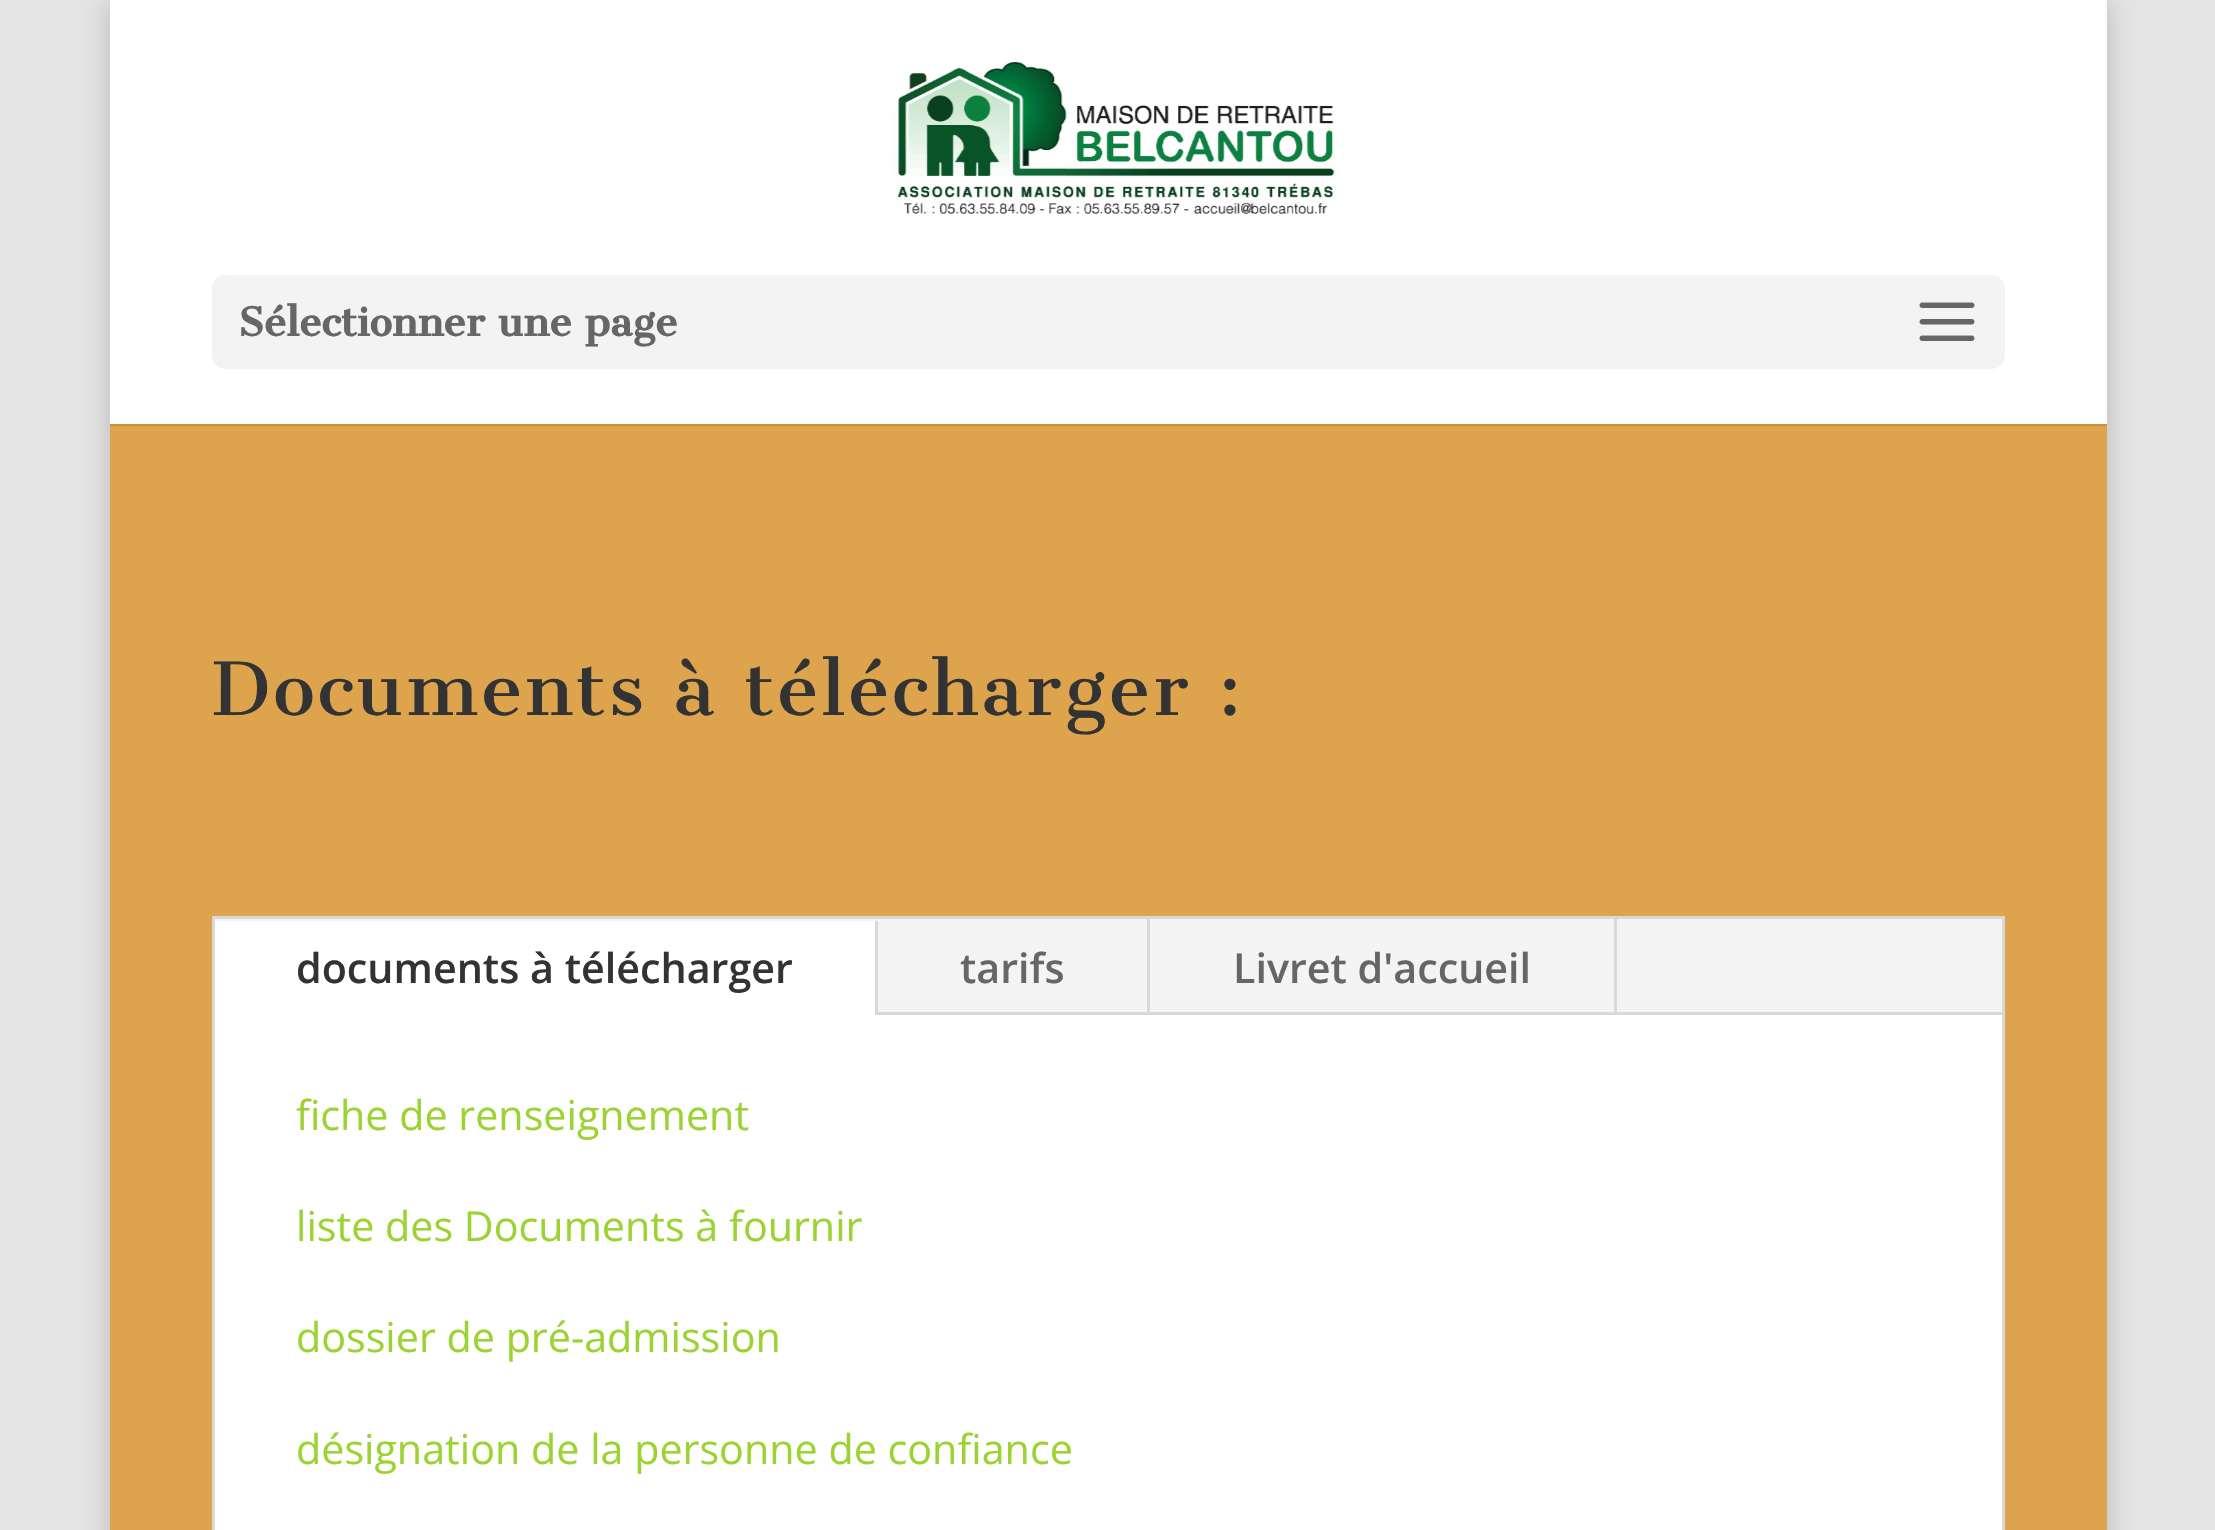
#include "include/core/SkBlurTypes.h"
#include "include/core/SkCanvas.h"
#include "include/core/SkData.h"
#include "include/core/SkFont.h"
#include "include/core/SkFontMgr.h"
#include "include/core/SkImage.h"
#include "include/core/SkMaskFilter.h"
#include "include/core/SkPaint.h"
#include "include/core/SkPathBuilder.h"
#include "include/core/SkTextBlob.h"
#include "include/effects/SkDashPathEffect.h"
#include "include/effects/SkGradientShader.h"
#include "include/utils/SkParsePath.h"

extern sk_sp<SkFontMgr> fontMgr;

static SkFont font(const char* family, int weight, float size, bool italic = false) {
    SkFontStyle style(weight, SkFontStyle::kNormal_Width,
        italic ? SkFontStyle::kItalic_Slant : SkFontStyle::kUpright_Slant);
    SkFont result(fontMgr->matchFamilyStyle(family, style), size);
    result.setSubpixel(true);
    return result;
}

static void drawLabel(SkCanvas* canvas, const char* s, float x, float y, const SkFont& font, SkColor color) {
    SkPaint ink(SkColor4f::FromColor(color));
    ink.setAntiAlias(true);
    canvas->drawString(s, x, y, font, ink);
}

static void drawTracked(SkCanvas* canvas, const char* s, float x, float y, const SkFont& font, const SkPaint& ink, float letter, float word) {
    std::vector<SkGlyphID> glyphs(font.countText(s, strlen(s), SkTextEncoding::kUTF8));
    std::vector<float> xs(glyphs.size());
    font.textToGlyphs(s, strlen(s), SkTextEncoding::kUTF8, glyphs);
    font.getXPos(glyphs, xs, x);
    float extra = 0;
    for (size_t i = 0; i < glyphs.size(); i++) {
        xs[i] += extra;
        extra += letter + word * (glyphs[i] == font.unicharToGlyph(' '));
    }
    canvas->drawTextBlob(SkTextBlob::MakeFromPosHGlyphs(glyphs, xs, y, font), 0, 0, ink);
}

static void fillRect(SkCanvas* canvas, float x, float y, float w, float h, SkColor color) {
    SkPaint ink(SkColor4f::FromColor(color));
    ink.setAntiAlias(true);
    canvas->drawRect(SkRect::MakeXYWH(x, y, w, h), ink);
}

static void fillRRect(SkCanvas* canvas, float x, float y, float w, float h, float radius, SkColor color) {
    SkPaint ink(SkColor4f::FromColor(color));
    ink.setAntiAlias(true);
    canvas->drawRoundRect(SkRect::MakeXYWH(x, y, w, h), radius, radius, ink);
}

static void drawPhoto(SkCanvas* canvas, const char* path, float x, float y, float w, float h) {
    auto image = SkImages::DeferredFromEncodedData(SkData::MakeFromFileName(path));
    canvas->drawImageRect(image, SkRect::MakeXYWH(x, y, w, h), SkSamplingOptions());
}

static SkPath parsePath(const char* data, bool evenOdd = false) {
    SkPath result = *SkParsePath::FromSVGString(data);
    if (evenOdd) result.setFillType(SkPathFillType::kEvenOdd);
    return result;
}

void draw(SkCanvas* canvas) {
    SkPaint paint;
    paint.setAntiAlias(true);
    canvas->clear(0xFFE5E5E5);
    paint.setColor(0x33000000);
    paint.setMaskFilter(SkMaskFilter::MakeBlur(kNormal_SkBlurStyle, 14));
    canvas->drawRect(SkRect::MakeXYWH(110, 0, 1997, 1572), paint);
    paint.setMaskFilter(nullptr);
    fillRect(canvas, 110, 424, 1997, 1106, 0xFFDDA44D);
    paint.setColor(0x1A000000);
    canvas->drawPath(parsePath("M110 424V426H2107V3H2106V424Z"), paint);
    fillRect(canvas, 110, 0, 1997, 424, 0xFFFFFFFF);
    drawPhoto(canvas, "assets/img1.png", 891, 62, 448, 152);
    fillRRect(canvas, 212, 275, 1793, 94, 14, 0xFFF3F3F3);
    SkFont font1 = font("Cantata One", 700, 38.5f);
    drawLabel(canvas, "Sélectionner une page", 238, 336, font1, 0xFF666666);
    drawPhoto(canvas, "assets/img2.png", 1919, 302, 56, 39);
    SkFont font2 = font("Cantata One", 400, 71.5f);
    paint.setColor(0xFF333333);
    drawTracked(canvas, "Documents à télécharger :", 211, 715, font2, paint, 2.75f, 0);
    paint.setStroke(true);
    paint.setStrokeWidth(3);
    paint.setColor(0xFFD9D9D9);
    canvas->drawRect(SkRect::MakeXYWH(213.5f, 917.5f, 1790, 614), paint);
    fillRect(canvas, 215, 919, 1787, 93, 0xFFF4F4F4);
    fillRect(canvas, 878, 1012, 1124, 3, 0xFFD9D9D9);
    fillRect(canvas, 215, 921, 660, 94, 0xFFFFFFFF);
    fillRect(canvas, 875, 921, 3, 94, 0xFFD9D9D9);
    SkFont font3 = font("Open Sans", 600, 41.25f);
    drawLabel(canvas, "documents à télécharger", 296, 983, font3, 0xFF333333);
    fillRect(canvas, 1147, 919, 3, 93, 0xFFD9D9D9);
    drawLabel(canvas, "tarifs", 960, 983, font3, 0xFF666666);
    fillRect(canvas, 1614, 919, 3, 93, 0xFFD9D9D9);
    drawLabel(canvas, "Livret d'accueil", 1233, 983, font3, 0xFF666666);
    fillRect(canvas, 215, 1015, 1787, 515, 0xFFFFFFFF);
    SkFont font4 = font("Open Sans", 400, 41.25f);
    drawLabel(canvas, "fiche de renseignement", 296, 1130, font4, 0xFF9BD332);
    drawLabel(canvas, "liste des Documents à fournir", 296, 1241, font4, 0xFF9BD332);
    drawLabel(canvas, "dossier de pré-admission", 296, 1352, font4, 0xFF9BD332);
    drawLabel(canvas, "désignation de la personne de confiance", 296, 1464, font4, 0xFF9BD332);
}
